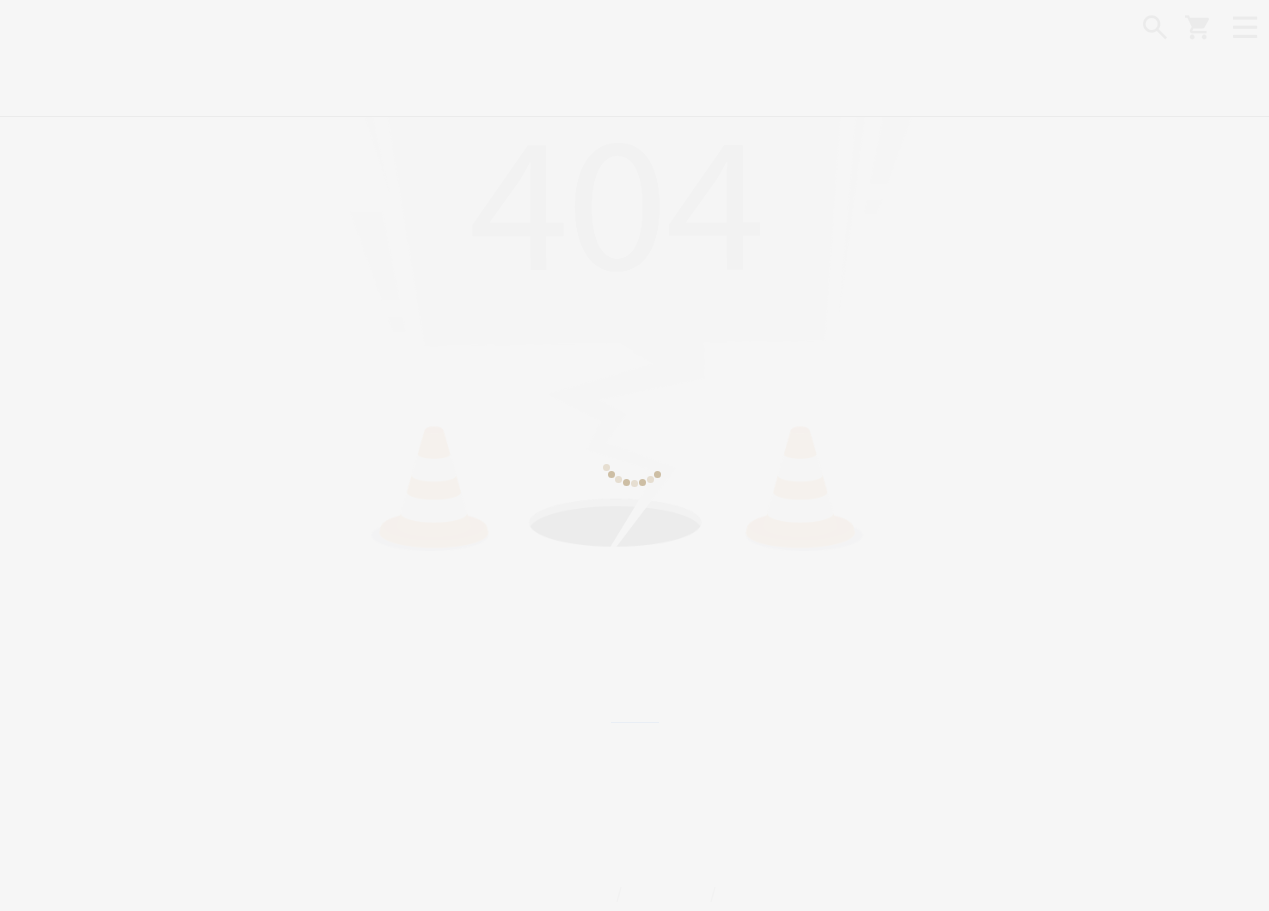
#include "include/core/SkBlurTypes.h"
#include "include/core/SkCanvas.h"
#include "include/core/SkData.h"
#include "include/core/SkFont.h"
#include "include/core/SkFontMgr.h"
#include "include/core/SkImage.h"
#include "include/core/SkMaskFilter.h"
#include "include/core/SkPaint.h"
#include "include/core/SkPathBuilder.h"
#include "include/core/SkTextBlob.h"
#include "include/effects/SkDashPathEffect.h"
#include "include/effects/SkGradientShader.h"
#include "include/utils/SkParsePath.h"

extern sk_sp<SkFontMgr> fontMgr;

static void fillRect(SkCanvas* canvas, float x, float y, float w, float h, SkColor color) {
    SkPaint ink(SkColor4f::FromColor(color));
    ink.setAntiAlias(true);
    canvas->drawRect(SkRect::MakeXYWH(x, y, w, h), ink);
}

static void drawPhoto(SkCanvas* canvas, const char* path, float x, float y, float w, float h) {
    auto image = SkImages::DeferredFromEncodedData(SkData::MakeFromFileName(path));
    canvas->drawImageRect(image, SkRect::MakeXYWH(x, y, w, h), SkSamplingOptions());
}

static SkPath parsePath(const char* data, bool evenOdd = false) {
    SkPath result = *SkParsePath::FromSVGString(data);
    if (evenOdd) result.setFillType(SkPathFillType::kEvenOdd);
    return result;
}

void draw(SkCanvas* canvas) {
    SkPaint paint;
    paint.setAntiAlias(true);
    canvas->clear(0xFFF6F6F6);
    fillRect(canvas, 0, 116, 1269, 1, 0xFFEBEBEB);
    drawPhoto(canvas, "assets/img1.png", 1143, 15, 24, 25);
    drawPhoto(canvas, "assets/img2.png", 1185, 15, 24, 25);
    drawPhoto(canvas, "assets/img3.png", 1233, 16, 25, 22);
    drawPhoto(canvas, "assets/img4.png", 350, 117, 562, 434);
    fillRect(canvas, 611, 722, 48, 1, 0xFFE9EEF5);
    paint.setColor(0xFFF2F2F2);
    canvas->drawPath(parsePath("M616.5 901.5L620.5 887L621.5 887.5L617.5 902Z"), paint);
    canvas->drawPath(parsePath("M710.5 901.5L714.5 887L715.5 887.5L711.5 902Z"), paint);
    paint.setColor(0xFFE6DED1);
    canvas->drawCircle(606.5f, 467.5f, 3.5f, paint);
    paint.setColor(0xFFCDBEA4);
    canvas->drawCircle(611.5f, 474.5f, 3.5f, paint);
    canvas->drawCircle(657.5f, 474.5f, 3.5f, paint);
    paint.setColor(0xFFE6DED1);
    canvas->drawCircle(618.5f, 479.5f, 3.5f, paint);
    paint.setColor(0xFFCDBEA4);
    canvas->drawCircle(626.5f, 482.5f, 3.5f, paint);
    paint.setColor(0xFFE6DED1);
    canvas->drawCircle(634.5f, 483.5f, 3.5f, paint);
    paint.setColor(0xFFCDBEA4);
    canvas->drawCircle(642.5f, 482.5f, 3.5f, paint);
    paint.setColor(0xFFE6DED1);
    canvas->drawCircle(650.5f, 479.5f, 3.5f, paint);
}
